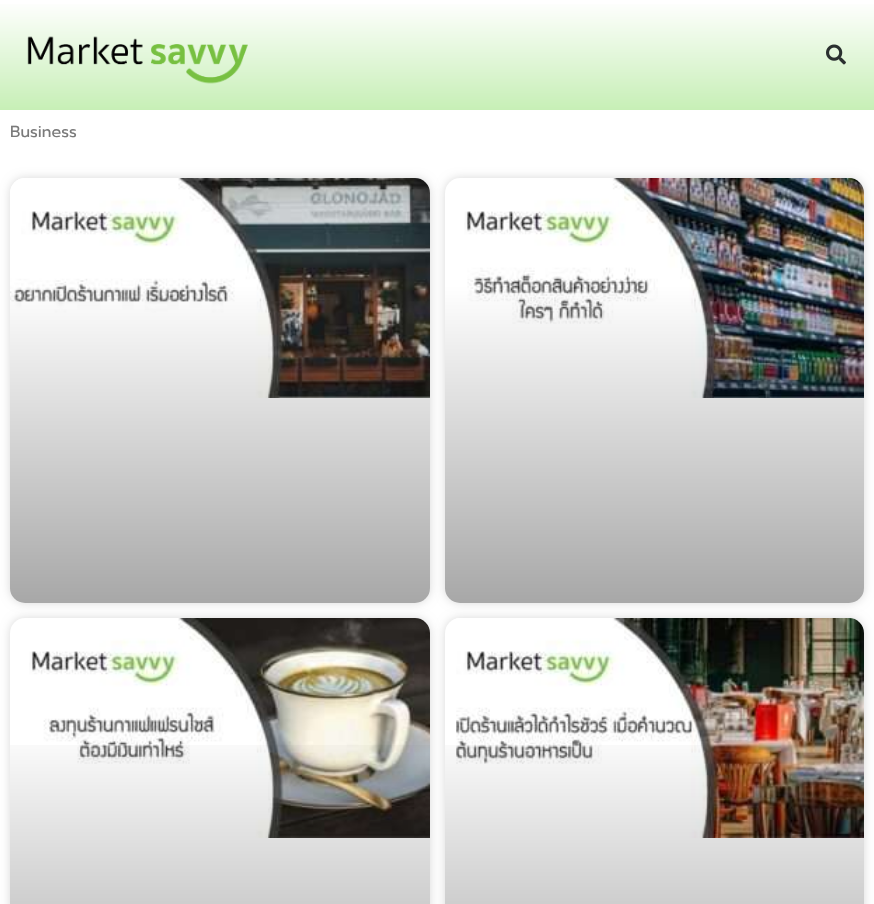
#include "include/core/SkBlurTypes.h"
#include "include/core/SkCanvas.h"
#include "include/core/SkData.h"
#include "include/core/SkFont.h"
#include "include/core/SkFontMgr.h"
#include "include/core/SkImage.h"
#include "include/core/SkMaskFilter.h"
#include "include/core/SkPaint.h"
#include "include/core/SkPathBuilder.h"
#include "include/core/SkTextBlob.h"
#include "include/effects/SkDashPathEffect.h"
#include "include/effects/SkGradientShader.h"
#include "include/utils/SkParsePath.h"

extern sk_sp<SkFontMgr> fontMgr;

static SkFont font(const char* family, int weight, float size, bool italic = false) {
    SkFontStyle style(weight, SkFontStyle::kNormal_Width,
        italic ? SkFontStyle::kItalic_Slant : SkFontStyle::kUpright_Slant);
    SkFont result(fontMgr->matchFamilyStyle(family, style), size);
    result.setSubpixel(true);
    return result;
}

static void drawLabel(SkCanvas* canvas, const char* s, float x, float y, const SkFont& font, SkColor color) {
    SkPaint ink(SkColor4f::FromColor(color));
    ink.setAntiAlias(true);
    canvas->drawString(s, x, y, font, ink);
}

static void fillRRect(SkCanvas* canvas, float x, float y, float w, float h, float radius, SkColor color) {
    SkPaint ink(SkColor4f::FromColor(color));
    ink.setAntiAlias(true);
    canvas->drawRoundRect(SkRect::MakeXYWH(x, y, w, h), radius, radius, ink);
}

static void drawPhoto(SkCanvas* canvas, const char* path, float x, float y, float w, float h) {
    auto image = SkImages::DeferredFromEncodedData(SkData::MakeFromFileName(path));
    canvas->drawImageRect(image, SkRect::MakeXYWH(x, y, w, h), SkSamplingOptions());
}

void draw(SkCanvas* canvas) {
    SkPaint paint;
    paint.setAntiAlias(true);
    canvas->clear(0xFFFFFFFF);
    {
        const SkColor colors[] = {0xFFFFFFFF, 0xFFC7EFB6};
        const float stops[] = {0, 1};
        const SkPoint ends[] = {{437, 0}, {437, 110}};
        paint.setShader(SkGradientShader::MakeLinear(ends, colors, stops, 2, SkTileMode::kClamp));
        paint.setAlpha(255);
    }
    canvas->drawRect(SkRect::MakeXYWH(0, 4, 874, 106), paint);
    drawPhoto(canvas, "assets/img1.png", 27, 36, 221, 48);
    drawPhoto(canvas, "assets/img2.png", 826, 44, 20, 21);
    SkFont font1 = font("Prompt", 400, 16);
    drawLabel(canvas, "Business", 10, 137, font1, 0xFF7A7A7A);
    paint.setShader(nullptr);
    paint.setColor(0x26000000);
    paint.setMaskFilter(SkMaskFilter::MakeBlur(kNormal_SkBlurStyle, 5));
    canvas->drawRoundRect(SkRect::MakeXYWH(10, 178, 420, 425), 15, 15, paint);
    paint.setMaskFilter(nullptr);
    fillRRect(canvas, 10, 178, 420, 425, 15, 0xFFFFFFFF);
    drawPhoto(canvas, "assets/img3.png", 10, 178, 420, 220);
    {
        const SkColor colors[] = {0x59000000, 0x00000000};
        const float stops[] = {0, 0.75f};
        const SkPoint ends[] = {{220, 608}, {220, 178}};
        paint.setShader(SkGradientShader::MakeLinear(ends, colors, stops, 2, SkTileMode::kClamp));
        paint.setAlpha(255);
    }
    canvas->drawRoundRect(SkRect::MakeXYWH(10, 178, 420, 425), 15, 15, paint);
    paint.setShader(nullptr);
    paint.setColor(0x26000000);
    paint.setMaskFilter(SkMaskFilter::MakeBlur(kNormal_SkBlurStyle, 5));
    canvas->drawRoundRect(SkRect::MakeXYWH(445, 178, 419, 425), 15, 15, paint);
    paint.setMaskFilter(nullptr);
    fillRRect(canvas, 445, 178, 419, 425, 15, 0xFFFFFFFF);
    drawPhoto(canvas, "assets/img4.png", 464, 178, 400, 220);
    {
        const SkColor colors[] = {0x59000000, 0x00000000};
        const float stops[] = {0, 0.75f};
        const SkPoint ends[] = {{655, 608}, {655, 178}};
        paint.setShader(SkGradientShader::MakeLinear(ends, colors, stops, 2, SkTileMode::kClamp));
        paint.setAlpha(255);
    }
    canvas->drawRoundRect(SkRect::MakeXYWH(445, 178, 419, 425), 15, 15, paint);
    paint.setShader(nullptr);
    paint.setColor(0x26000000);
    paint.setMaskFilter(SkMaskFilter::MakeBlur(kNormal_SkBlurStyle, 5));
    canvas->drawRoundRect(SkRect::MakeXYWH(10, 618, 420, 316), 15, 15, paint);
    paint.setMaskFilter(nullptr);
    fillRRect(canvas, 10, 618, 420, 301, 15, 0xFFFFFFFF);
    drawPhoto(canvas, "assets/img5.png", 29, 618, 401, 220);
    {
        const SkColor colors[] = {0x59000000, 0x00000000};
        const float stops[] = {0, 0.75f};
        const SkPoint ends[] = {{220, 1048}, {220, 618}};
        paint.setShader(SkGradientShader::MakeLinear(ends, colors, stops, 2, SkTileMode::kClamp));
        paint.setAlpha(255);
    }
    canvas->drawRect(SkRect::MakeXYWH(10, 745, 420, 159), paint);
    paint.setShader(nullptr);
    paint.setColor(0x26000000);
    paint.setMaskFilter(SkMaskFilter::MakeBlur(kNormal_SkBlurStyle, 5));
    canvas->drawRoundRect(SkRect::MakeXYWH(445, 618, 419, 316), 15, 15, paint);
    paint.setMaskFilter(nullptr);
    fillRRect(canvas, 445, 618, 419, 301, 15, 0xFFFFFFFF);
    drawPhoto(canvas, "assets/img6.png", 456, 618, 408, 220);
    {
        const SkColor colors[] = {0x59000000, 0x00000000};
        const float stops[] = {0, 0.75f};
        const SkPoint ends[] = {{655, 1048}, {655, 618}};
        paint.setShader(SkGradientShader::MakeLinear(ends, colors, stops, 2, SkTileMode::kClamp));
        paint.setAlpha(255);
    }
    canvas->drawRect(SkRect::MakeXYWH(445, 745, 419, 159), paint);
}
